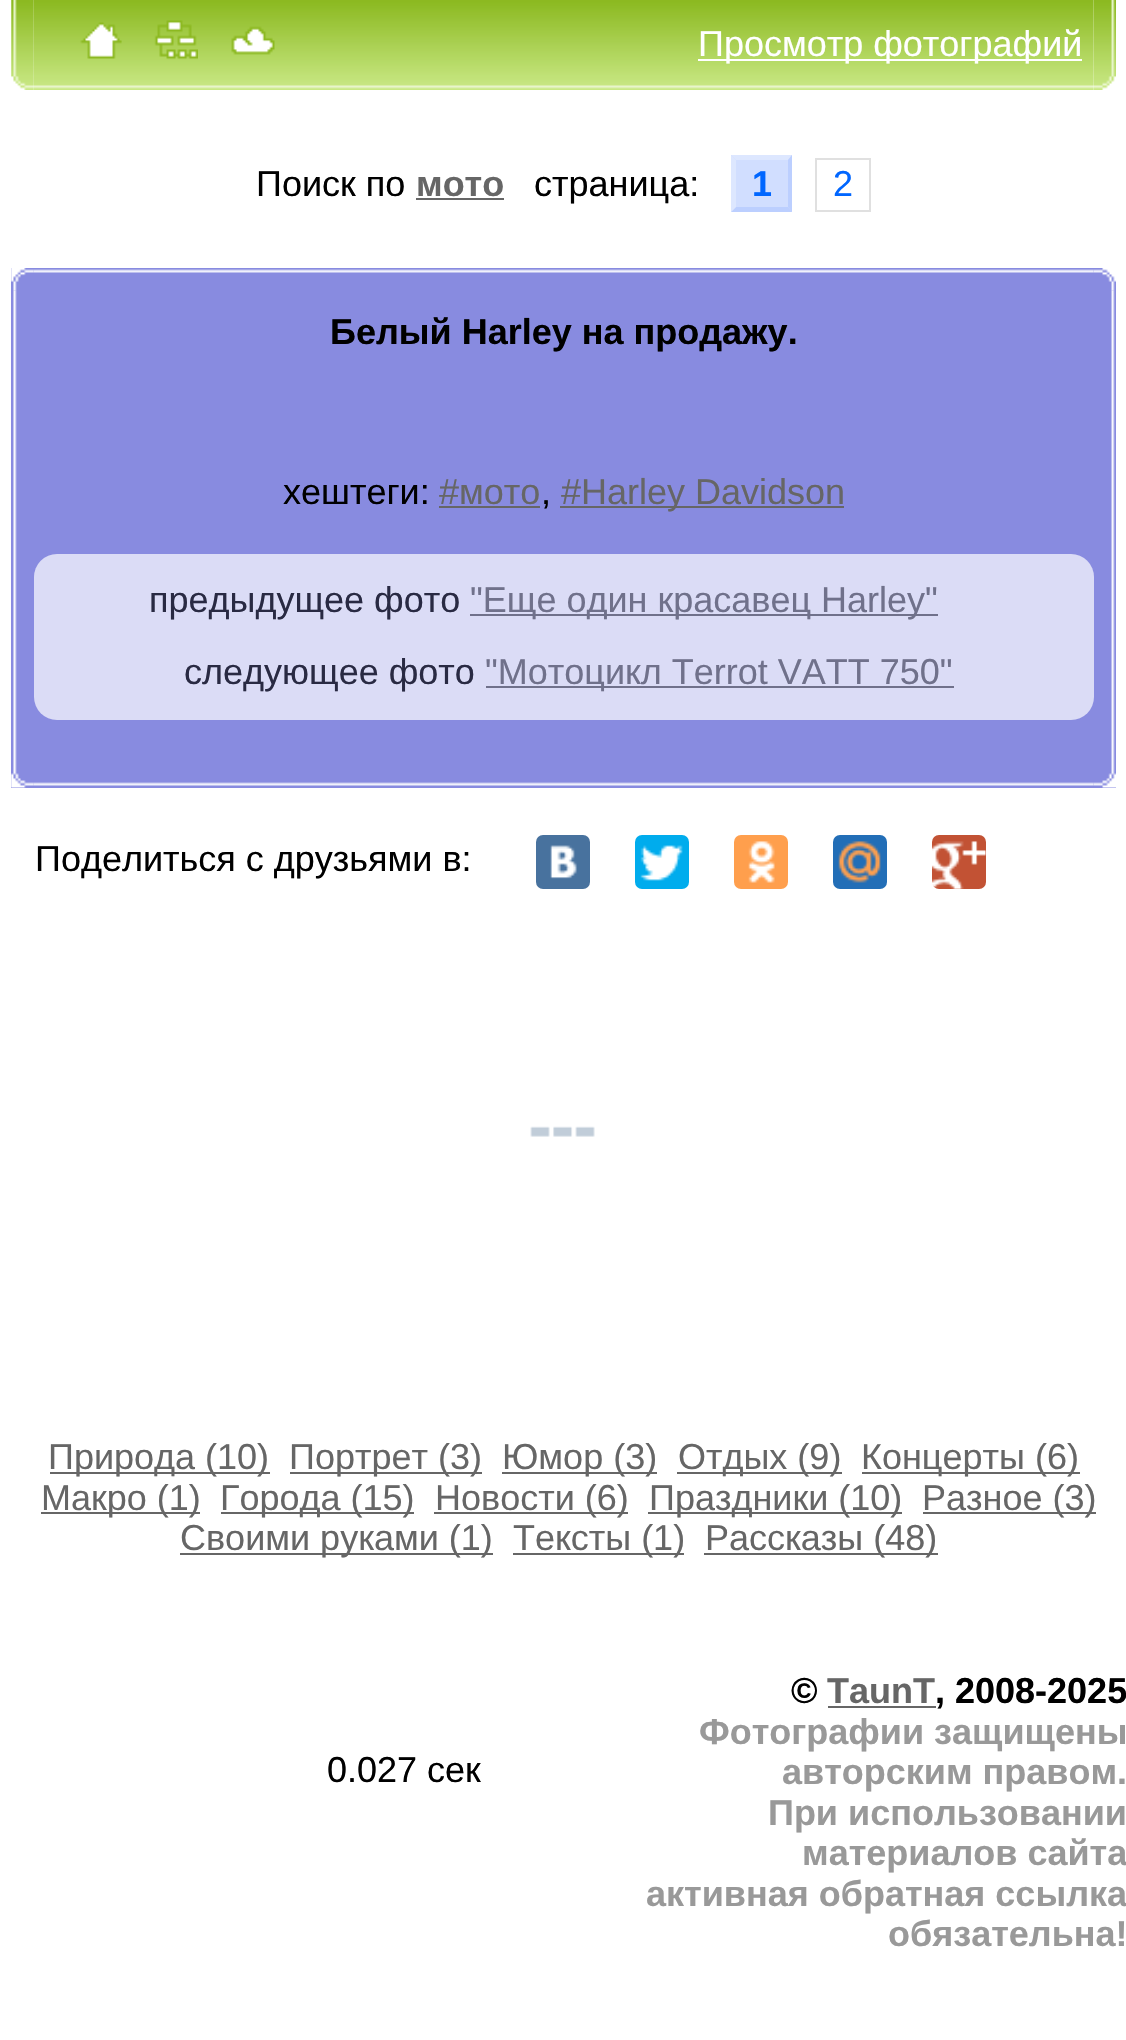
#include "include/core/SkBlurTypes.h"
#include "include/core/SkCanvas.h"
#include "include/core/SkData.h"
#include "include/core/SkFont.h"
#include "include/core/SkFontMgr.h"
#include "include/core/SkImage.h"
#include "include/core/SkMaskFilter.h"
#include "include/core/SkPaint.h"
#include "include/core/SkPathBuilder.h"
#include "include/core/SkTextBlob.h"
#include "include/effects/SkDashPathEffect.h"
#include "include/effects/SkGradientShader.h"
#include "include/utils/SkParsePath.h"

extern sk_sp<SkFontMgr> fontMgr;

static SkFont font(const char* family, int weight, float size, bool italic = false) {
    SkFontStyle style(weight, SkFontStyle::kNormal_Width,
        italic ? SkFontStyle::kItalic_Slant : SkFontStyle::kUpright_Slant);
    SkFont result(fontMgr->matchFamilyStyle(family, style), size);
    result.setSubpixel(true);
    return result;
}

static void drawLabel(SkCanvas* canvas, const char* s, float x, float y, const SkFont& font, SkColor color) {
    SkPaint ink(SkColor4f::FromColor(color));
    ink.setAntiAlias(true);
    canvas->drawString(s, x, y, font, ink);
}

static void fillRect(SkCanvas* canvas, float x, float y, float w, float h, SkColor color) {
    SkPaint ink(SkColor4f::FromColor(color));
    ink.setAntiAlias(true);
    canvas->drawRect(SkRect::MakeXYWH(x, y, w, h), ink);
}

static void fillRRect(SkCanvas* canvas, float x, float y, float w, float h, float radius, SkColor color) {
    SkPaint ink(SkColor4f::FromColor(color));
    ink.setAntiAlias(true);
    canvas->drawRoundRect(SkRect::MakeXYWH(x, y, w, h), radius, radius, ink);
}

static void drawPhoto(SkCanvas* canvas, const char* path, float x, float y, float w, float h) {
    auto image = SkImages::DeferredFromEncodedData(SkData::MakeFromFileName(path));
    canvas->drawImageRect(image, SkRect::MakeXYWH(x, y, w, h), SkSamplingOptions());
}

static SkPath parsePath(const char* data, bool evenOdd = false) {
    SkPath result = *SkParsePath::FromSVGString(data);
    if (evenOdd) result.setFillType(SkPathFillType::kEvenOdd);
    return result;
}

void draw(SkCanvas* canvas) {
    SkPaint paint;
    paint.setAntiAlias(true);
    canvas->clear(0xFFFFFFFF);
    drawPhoto(canvas, "assets/img1.png", 11, 0, 23, 90);
    drawPhoto(canvas, "assets/img2.png", 33, 0, 399, 90);
    drawPhoto(canvas, "assets/img3.png", 80, 22, 42, 37);
    drawPhoto(canvas, "assets/img4.png", 154, 20, 44, 40);
    drawPhoto(canvas, "assets/img5.png", 231, 26, 44, 29);
    drawPhoto(canvas, "assets/img6.png", 432, 0, 662, 90);
    fillRect(canvas, 698, 59, 384, 2, 0xFFFFFFFF);
    SkFont font1 = font("Liberation Sans", 400, 36);
    drawLabel(canvas, "Просмотр фотографий", 698, 56, font1, 0xFFFFFFFF);
    drawPhoto(canvas, "assets/img7.png", 1093, 0, 23, 90);
    drawLabel(canvas, "Поиск по", 256, 196, font1, 0xFF000000);
    SkFont font2 = font("Liberation Sans", 700, 36);
    drawLabel(canvas, "мото", 416, 196, font2, 0xFF666666);
    fillRect(canvas, 416, 198, 88, 2, 0xFF666666);
    drawLabel(canvas, "cтраница:", 534, 196, font1, 0xFF000000);
    fillRect(canvas, 731, 155, 61, 57, 0xFFD1DEFF);
    drawLabel(canvas, "1", 752, 196, font2, 0xFF0066FF);
    paint.setColor(0xFFDDE7FF);
    canvas->drawPath(parsePath("M731 155H792L788 160H736Z"), paint);
    paint.setColor(0xFFBCCFFF);
    canvas->drawPath(parsePath("M792 155V212L788 207V160Z"), paint);
    canvas->drawPath(parsePath("M792 212H731L736 207H788Z"), paint);
    paint.setColor(0xFFDDE7FF);
    canvas->drawPath(parsePath("M731 212V155L736 160V207Z"), paint);
    paint.setStroke(true);
    paint.setStrokeWidth(2);
    paint.setColor(0xFFE0E0E0);
    canvas->drawRect(SkRect::MakeXYWH(816, 159, 54, 52), paint);
    drawLabel(canvas, "2", 833, 196, font1, 0xFF0066FF);
    fillRect(canvas, 11, 268, 1105, 520, 0xFF888BE0);
    drawPhoto(canvas, "assets/img8.png", 11, 268, 23, 23);
    drawPhoto(canvas, "assets/img9.png", 33, 269, 1061, 4);
    drawPhoto(canvas, "assets/img10.png", 1093, 268, 23, 23);
    drawPhoto(canvas, "assets/img11.png", 13, 290, 4, 475);
    drawLabel(canvas, "Белый Harley на продажу.", 330, 344, font2, 0xFF000000);
    drawLabel(canvas, "хештеги:", 283, 504, font1, 0xFF000000);
    drawLabel(canvas, "#мото", 439, 504, font1, 0xFF666666);
    fillRect(canvas, 439, 506, 101, 2, 0xFF666666);
    drawLabel(canvas, ",", 541, 504, font1, 0xFF000000);
    fillRect(canvas, 560, 506, 284, 2, 0xFF666666);
    drawLabel(canvas, "#Harley Davidson", 561, 504, font1, 0xFF666666);
    fillRRect(canvas, 34, 554, 1060, 166, 23, 0xFFDBDCF6);
    drawLabel(canvas, "предыдущее фото", 149, 612, font1, 0xFF292A43);
    fillRect(canvas, 470, 614, 468, 2, 0xFF70718B);
    drawLabel(canvas, "\"Еще один красавец Harley\"", 470, 612, font1, 0xFF70718B);
    drawLabel(canvas, "следующее фото", 184, 684, font1, 0xFF292A43);
    fillRect(canvas, 486, 686, 468, 2, 0xFF70718B);
    drawLabel(canvas, "\"Мотоцикл Terrot VATT 750\"", 485, 684, font1, 0xFF70718B);
    drawPhoto(canvas, "assets/img12.png", 1111, 290, 4, 475);
    drawPhoto(canvas, "assets/img13.png", 11, 765, 23, 23);
    drawPhoto(canvas, "assets/img9.png", 33, 782, 1061, 4);
    drawPhoto(canvas, "assets/img14.png", 1093, 765, 23, 23);
    drawLabel(canvas, "Поделиться с друзьями в:", 35, 871, font1, 0xFF000000);
    fillRRect(canvas, 536, 835, 54, 54, 7, 0xFF48729E);
    drawPhoto(canvas, "assets/img15.png", 550, 845, 27, 34);
    fillRRect(canvas, 635, 835, 54, 54, 7, 0xFF00ACED);
    drawPhoto(canvas, "assets/img16.png", 640, 845, 43, 36);
    fillRRect(canvas, 734, 835, 54, 54, 7, 0xFFFF9F4D);
    drawPhoto(canvas, "assets/img17.png", 748, 841, 27, 42);
    fillRRect(canvas, 833, 835, 54, 54, 7, 0xFF226EB7);
    drawPhoto(canvas, "assets/img18.png", 838, 841, 43, 42);
    fillRRect(canvas, 932, 835, 54, 54, 7, 0xFFC25234);
    drawPhoto(canvas, "assets/img19.png", 932, 841, 54, 48);
    drawPhoto(canvas, "assets/img20.png", 530, 1126, 65, 11);
    fillRect(canvas, 50, 1472, 220, 2, 0xFF666666);
    drawLabel(canvas, "Природа (10)", 48, 1469, font1, 0xFF666666);
    fillRect(canvas, 290, 1472, 192, 2, 0xFF666666);
    drawLabel(canvas, "Портрет (3)", 289, 1469, font1, 0xFF666666);
    fillRect(canvas, 502, 1472, 155, 2, 0xFF666666);
    drawLabel(canvas, "Юмор (3)", 502, 1469, font1, 0xFF666666);
    fillRect(canvas, 677, 1472, 165, 2, 0xFF666666);
    drawLabel(canvas, "Отдых (9)", 678, 1469, font1, 0xFF666666);
    fillRect(canvas, 862, 1472, 218, 2, 0xFF666666);
    drawLabel(canvas, "Концерты (6)", 861, 1469, font1, 0xFF666666);
    fillRect(canvas, 41, 1512, 159, 2, 0xFF666666);
    drawLabel(canvas, "Макро (1)", 41, 1510, font1, 0xFF666666);
    fillRect(canvas, 221, 1512, 193, 2, 0xFF666666);
    drawLabel(canvas, "Города (15)", 220, 1510, font1, 0xFF666666);
    fillRect(canvas, 434, 1512, 194, 2, 0xFF666666);
    drawLabel(canvas, "Новости (6)", 435, 1510, font1, 0xFF666666);
    fillRect(canvas, 648, 1512, 254, 2, 0xFF666666);
    drawLabel(canvas, "Праздники (10)", 649, 1510, font1, 0xFF666666);
    fillRect(canvas, 923, 1512, 173, 2, 0xFF666666);
    drawLabel(canvas, "Разное (3)", 922, 1510, font1, 0xFF666666);
    fillRect(canvas, 180, 1553, 313, 2, 0xFF666666);
    drawLabel(canvas, "Своими руками (1)", 180, 1550, font1, 0xFF666666);
    fillRect(canvas, 513, 1553, 171, 2, 0xFF666666);
    drawLabel(canvas, "Тексты (1)", 513, 1550, font1, 0xFF666666);
    fillRect(canvas, 704, 1553, 234, 2, 0xFF666666);
    drawLabel(canvas, "Рассказы (48)", 705, 1550, font1, 0xFF666666);
    drawLabel(canvas, "0.027 cек", 327, 1782, font1, 0xFF000000);
    drawLabel(canvas, "©", 791, 1703, font2, 0xFF000000);
    drawLabel(canvas, "TaunT", 827, 1703, font2, 0xFF666666);
    fillRect(canvas, 828, 1706, 108, 2, 0xFF666666);
    drawLabel(canvas, ", 2008-2025", 935, 1703, font2, 0xFF000000);
    drawLabel(canvas, "Фотографии защищены", 699, 1744, font2, 0xFF999999);
    drawLabel(canvas, "авторским правом.", 782, 1784, font2, 0xFF999999);
    drawLabel(canvas, "При использовании", 768, 1825, font2, 0xFF999999);
    drawLabel(canvas, "материалов сайта", 802, 1865, font2, 0xFF999999);
    drawLabel(canvas, "активная обратная ссылка", 646, 1906, font2, 0xFF999999);
    drawLabel(canvas, "обязательна!", 888, 1946, font2, 0xFF999999);
}
